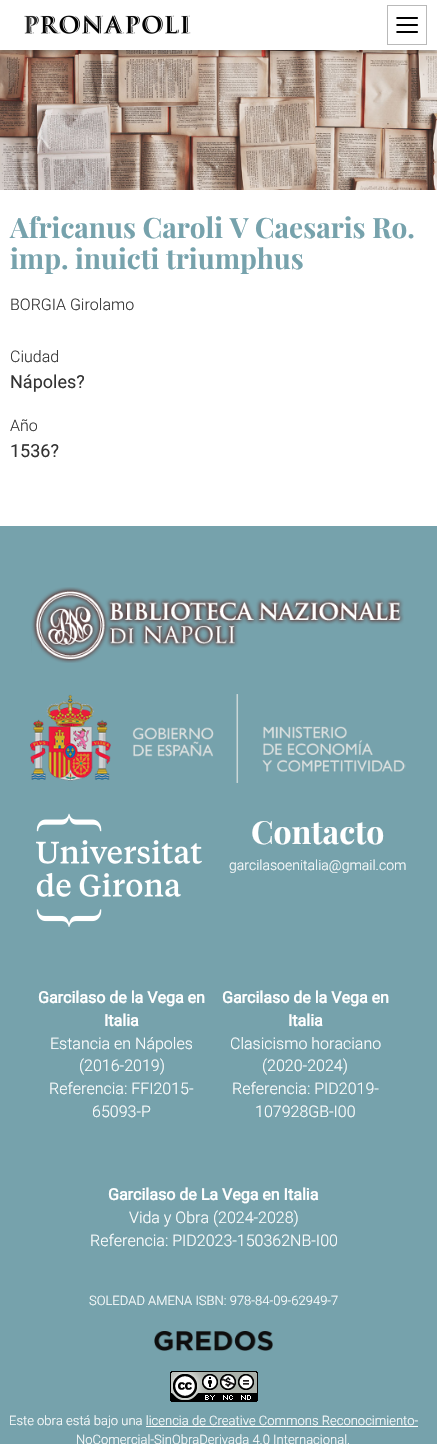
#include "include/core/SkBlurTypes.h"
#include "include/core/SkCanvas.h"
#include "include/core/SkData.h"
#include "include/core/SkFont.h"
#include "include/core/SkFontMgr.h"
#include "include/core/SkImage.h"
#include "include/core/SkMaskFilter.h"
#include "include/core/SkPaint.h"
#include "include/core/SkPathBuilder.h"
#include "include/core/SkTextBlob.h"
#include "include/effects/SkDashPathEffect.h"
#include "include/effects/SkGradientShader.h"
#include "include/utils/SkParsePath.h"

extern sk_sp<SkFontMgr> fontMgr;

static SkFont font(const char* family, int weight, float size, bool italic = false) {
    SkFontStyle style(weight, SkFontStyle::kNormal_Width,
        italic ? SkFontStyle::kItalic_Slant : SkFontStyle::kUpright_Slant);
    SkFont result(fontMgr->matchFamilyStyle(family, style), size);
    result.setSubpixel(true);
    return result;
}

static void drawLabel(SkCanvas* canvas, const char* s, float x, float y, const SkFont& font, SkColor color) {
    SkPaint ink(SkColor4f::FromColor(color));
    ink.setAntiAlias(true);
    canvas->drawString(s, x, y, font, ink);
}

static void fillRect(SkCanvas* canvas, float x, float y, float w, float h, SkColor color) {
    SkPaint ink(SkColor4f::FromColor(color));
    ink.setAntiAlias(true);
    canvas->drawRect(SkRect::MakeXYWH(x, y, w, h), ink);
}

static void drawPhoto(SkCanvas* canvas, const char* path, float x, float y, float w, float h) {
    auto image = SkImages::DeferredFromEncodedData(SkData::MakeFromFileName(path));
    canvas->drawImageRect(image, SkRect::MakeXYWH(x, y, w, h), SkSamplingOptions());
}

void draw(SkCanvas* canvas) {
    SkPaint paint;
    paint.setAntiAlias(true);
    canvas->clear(0xFFFFFFFF);
    drawPhoto(canvas, "assets/img3.png", 0, 50, 437, 140);
    canvas->save();
    canvas->clipRect(SkRect::MakeXYWH(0, 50, 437, 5));
    paint.setColor(0x4D000000);
    paint.setMaskFilter(SkMaskFilter::MakeBlur(kNormal_SkBlurStyle, 2));
    canvas->drawRect(SkRect::MakeXYWH(0, 2, 437, 50), paint);
    paint.setMaskFilter(nullptr);
    canvas->restore();
    drawPhoto(canvas, "assets/img1.png", 24, 15, 167, 19);
    drawPhoto(canvas, "assets/img2.png", 387, 5, 40, 40);
    SkFont font1 = font("Playfair Display", 700, 28);
    drawLabel(canvas, "Africanus Caroli V Caesaris Ro.", 10, 238, font1, 0xFF76A2AC);
    drawLabel(canvas, "imp. inuicti triumphus", 10, 269, font1, 0xFF76A2AC);
    SkFont font2 = font("Roboto", 300, 16);
    drawLabel(canvas, "BORGIA Girolamo", 10, 310, font2, 0xFF333333);
    drawLabel(canvas, "Ciudad", 10, 362, font2, 0xFF333333);
    SkFont font3 = font("Roboto", 400, 18);
    drawLabel(canvas, "Nápoles?", 10, 388, font3, 0xFF333333);
    drawLabel(canvas, "Año", 10, 431, font2, 0xFF333333);
    drawLabel(canvas, "1536?", 10, 457, font3, 0xFF333333);
    fillRect(canvas, 0, 526, 437, 918, 0xFF76A2AC);
    drawPhoto(canvas, "assets/img4.png", 31, 587, 373, 76);
    drawPhoto(canvas, "assets/img5.png", 30, 694, 376, 89);
    drawPhoto(canvas, "assets/img6.png", 36, 813, 166, 114);
    SkFont font4 = font("Playfair Display", 700, 32);
    drawLabel(canvas, "Contacto", 251, 844, font4, 0xFFFFFFFF);
    SkFont font5 = font("Roboto", 300, 14);
    drawLabel(canvas, "garcilasoenitalia@gmail.com", 229, 870, font5, 0xFFFFFFFF);
    SkFont font6 = font("Roboto", 700, 16);
    drawLabel(canvas, "Garcilaso de la Vega en", 38, 1003, font6, 0xFFFFFFFF);
    drawLabel(canvas, "Italia", 104, 1026, font6, 0xFFFFFFFF);
    drawLabel(canvas, "Estancia en Nápoles", 50, 1049, font2, 0xFFFFFFFF);
    drawLabel(canvas, "(2016-2019)", 79, 1071, font2, 0xFFFFFFFF);
    drawLabel(canvas, "Referencia: FFI2015-", 49, 1094, font2, 0xFFFFFFFF);
    drawLabel(canvas, "65093-P", 92, 1117, font2, 0xFFFFFFFF);
    drawLabel(canvas, "Garcilaso de la Vega en", 222, 1003, font6, 0xFFFFFFFF);
    drawLabel(canvas, "Italia", 288, 1026, font6, 0xFFFFFFFF);
    drawLabel(canvas, "Clasicismo horaciano", 230, 1049, font2, 0xFFFFFFFF);
    drawLabel(canvas, "(2020-2024)", 262, 1071, font2, 0xFFFFFFFF);
    drawLabel(canvas, "Referencia: PID2019-", 232, 1094, font2, 0xFFFFFFFF);
    drawLabel(canvas, "107928GB-I00", 255, 1117, font2, 0xFFFFFFFF);
    drawLabel(canvas, "Garcilaso de La Vega en Italia", 108, 1200, font6, 0xFFFFFFFF);
    drawLabel(canvas, "Vida y Obra (2024-2028)", 129, 1223, font2, 0xFFFFFFFF);
    drawLabel(canvas, "Referencia: PID2023-150362NB-I00", 90, 1246, font2, 0xFFFFFFFF);
    SkFont font7 = font("Roboto", 300, 13);
    drawLabel(canvas, "SOLEDAD AMENA ISBN: 978-84-09-62949-7", 89, 1305, font7, 0xFFFFFFFF);
    drawPhoto(canvas, "assets/img7.png", 154, 1331, 119, 20);
    drawPhoto(canvas, "assets/img8.png", 170, 1371, 88, 31);
    drawLabel(canvas, "Este obra está bajo una licencia de Creative Commons Reconocimiento-", 9, 1425, font7, 0xFFFFFFFF);
    drawLabel(canvas, "NoComercial-SinObraDerivada 4.0 Internacional.", 76, 1444, font7, 0xFFFFFFFF);
    fillRect(canvas, 146, 1426, 272, 1, 0xFFFFFFFF);
}
